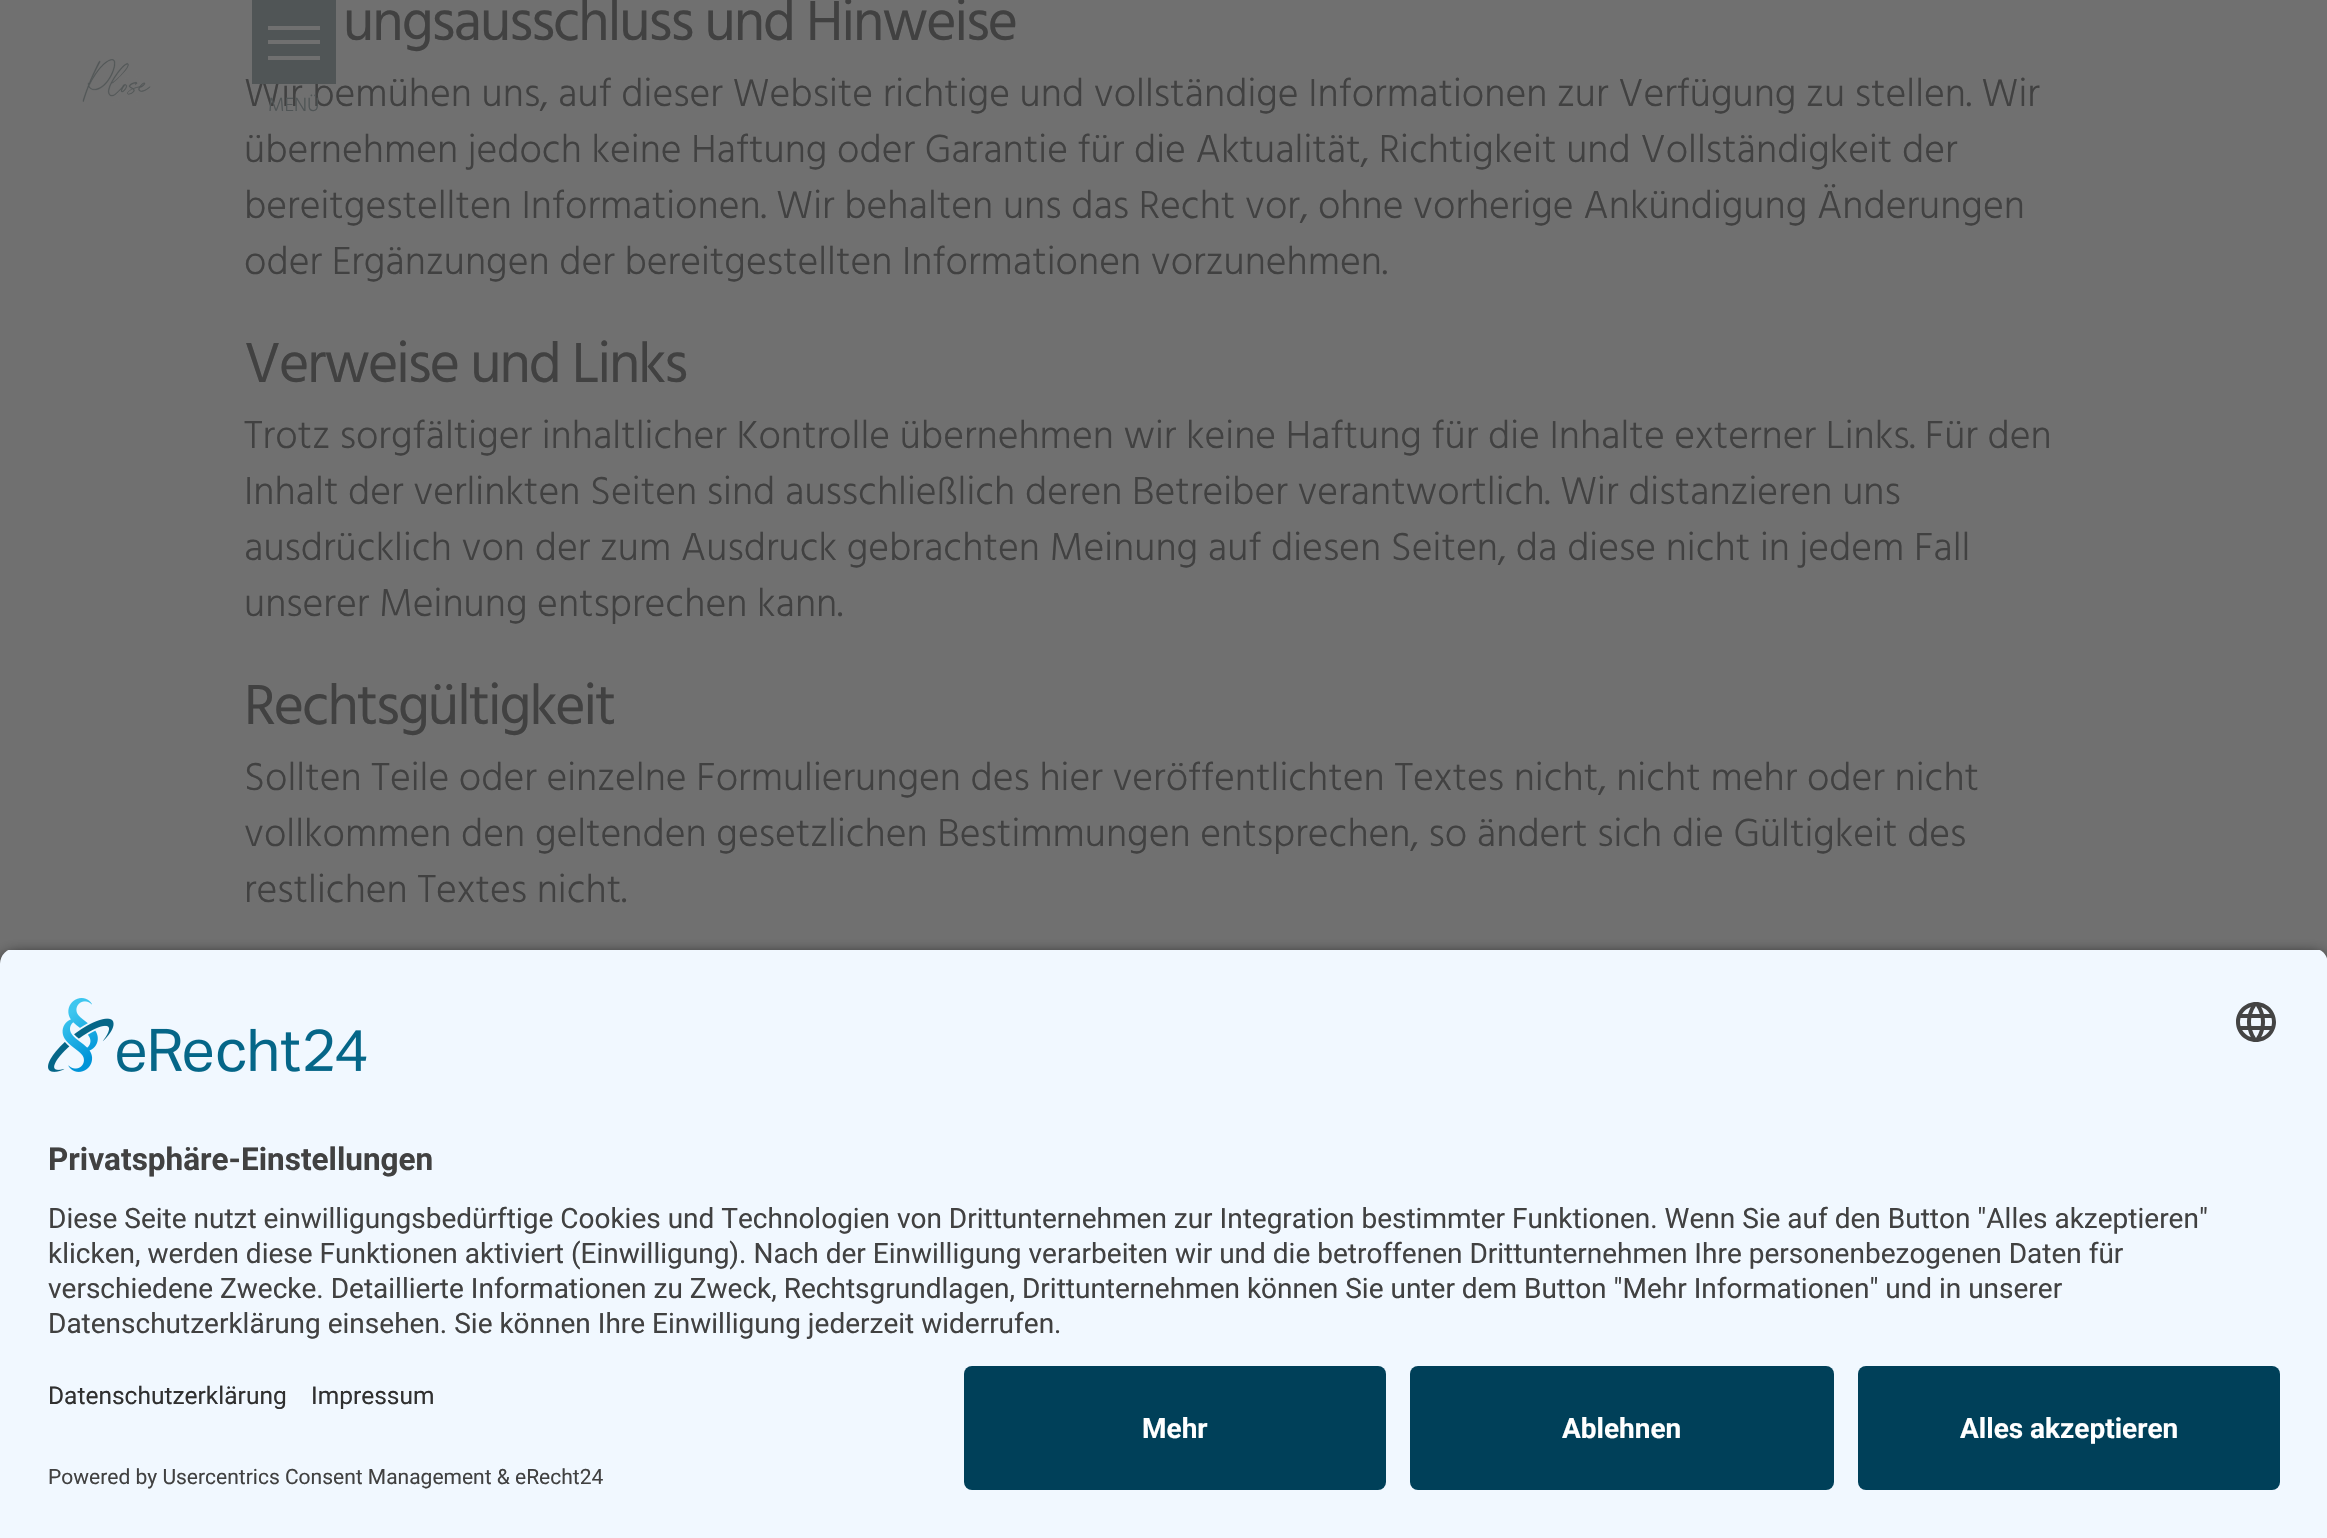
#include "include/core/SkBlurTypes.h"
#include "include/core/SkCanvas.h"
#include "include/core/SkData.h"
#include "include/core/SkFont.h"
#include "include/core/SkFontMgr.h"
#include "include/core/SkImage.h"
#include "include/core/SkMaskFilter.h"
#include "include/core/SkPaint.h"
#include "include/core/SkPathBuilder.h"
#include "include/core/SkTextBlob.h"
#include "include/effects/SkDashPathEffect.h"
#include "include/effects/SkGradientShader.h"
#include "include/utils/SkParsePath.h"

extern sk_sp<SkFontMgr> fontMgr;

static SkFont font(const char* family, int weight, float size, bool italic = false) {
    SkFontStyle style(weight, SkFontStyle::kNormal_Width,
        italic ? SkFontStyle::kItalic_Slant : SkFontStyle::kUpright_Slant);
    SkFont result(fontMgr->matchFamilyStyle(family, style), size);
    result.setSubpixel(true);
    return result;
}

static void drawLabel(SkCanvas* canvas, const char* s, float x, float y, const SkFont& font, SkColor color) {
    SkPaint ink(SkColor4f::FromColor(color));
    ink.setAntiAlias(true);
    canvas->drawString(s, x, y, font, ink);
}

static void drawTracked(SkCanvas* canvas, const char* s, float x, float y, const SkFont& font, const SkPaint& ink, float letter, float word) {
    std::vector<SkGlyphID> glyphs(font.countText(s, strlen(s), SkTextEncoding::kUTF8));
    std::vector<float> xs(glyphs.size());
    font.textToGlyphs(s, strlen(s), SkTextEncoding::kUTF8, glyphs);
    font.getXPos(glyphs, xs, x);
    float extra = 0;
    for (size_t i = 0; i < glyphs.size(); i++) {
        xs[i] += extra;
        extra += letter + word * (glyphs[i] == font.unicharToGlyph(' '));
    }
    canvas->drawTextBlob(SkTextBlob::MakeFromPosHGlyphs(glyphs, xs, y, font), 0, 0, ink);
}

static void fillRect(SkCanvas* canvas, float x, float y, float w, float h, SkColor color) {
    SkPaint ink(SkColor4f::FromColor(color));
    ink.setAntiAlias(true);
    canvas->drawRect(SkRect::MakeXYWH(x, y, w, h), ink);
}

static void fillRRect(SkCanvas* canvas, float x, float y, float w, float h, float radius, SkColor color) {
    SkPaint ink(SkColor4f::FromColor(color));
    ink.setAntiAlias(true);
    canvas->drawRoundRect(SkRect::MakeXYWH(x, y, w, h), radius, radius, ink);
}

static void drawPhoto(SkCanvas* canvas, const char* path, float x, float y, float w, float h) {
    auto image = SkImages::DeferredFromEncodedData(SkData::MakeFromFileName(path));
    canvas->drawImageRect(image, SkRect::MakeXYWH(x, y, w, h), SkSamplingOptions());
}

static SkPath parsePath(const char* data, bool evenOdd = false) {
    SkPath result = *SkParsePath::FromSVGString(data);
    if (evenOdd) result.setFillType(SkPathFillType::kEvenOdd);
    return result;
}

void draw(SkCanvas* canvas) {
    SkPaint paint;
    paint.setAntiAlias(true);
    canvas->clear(0xFF707070);
    drawPhoto(canvas, "assets/img1.png", 82, 59, 69, 43);
    SkFont font1 = font("Hind Vadodara", 400, 58);
    paint.setColor(0xFF414141);
    drawTracked(canvas, "ungsausschluss und Hinweise", 343, 40, font1, paint, -2, 0);
    SkFont font2 = font("Hind", 300, 40);
    drawLabel(canvas, "Wir bemühen uns, auf dieser Website richtige und vollständige Informationen zur Verfügung zu stellen. Wir", 244, 106, font2, 0xFF414141);
    drawLabel(canvas, "übernehmen jedoch keine Haftung oder Garantie für die Aktualität, Richtigkeit und Vollständigkeit der", 244, 162, font2, 0xFF414141);
    drawLabel(canvas, "bereitgestellten Informationen. Wir behalten uns das Recht vor, ohne vorherige Ankündigung Änderungen", 244, 218, font2, 0xFF414141);
    drawLabel(canvas, "oder Ergänzungen der bereitgestellten Informationen vorzunehmen.", 244, 274, font2, 0xFF414141);
    drawTracked(canvas, "Verweise und Links", 244, 382, font1, paint, -2, 0);
    drawLabel(canvas, "Trotz sorgfältiger inhaltlicher Kontrolle übernehmen wir keine Haftung für die Inhalte externer Links. Für den", 244, 448, font2, 0xFF414141);
    drawLabel(canvas, "Inhalt der verlinkten Seiten sind ausschließlich deren Betreiber verantwortlich. Wir distanzieren uns", 244, 504, font2, 0xFF414141);
    drawLabel(canvas, "ausdrücklich von der zum Ausdruck gebrachten Meinung auf diesen Seiten, da diese nicht in jedem Fall", 244, 560, font2, 0xFF414141);
    drawLabel(canvas, "unserer Meinung entsprechen kann.", 244, 616, font2, 0xFF414141);
    drawTracked(canvas, "Rechtsgültigkeit", 244, 724, font1, paint, -2, 0);
    drawLabel(canvas, "Sollten Teile oder einzelne Formulierungen des hier veröffentlichten Textes nicht, nicht mehr oder nicht", 244, 790, font2, 0xFF414141);
    drawLabel(canvas, "vollkommen den geltenden gesetzlichen Bestimmungen entsprechen, so ändert sich die Gültigkeit des", 244, 846, font2, 0xFF414141);
    drawLabel(canvas, "restlichen Textes nicht.", 244, 902, font2, 0xFF414141);
    fillRect(canvas, 252, 0, 84, 84, 0xFF505556);
    fillRect(canvas, 268, 40, 52, 4, 0xFF707070);
    fillRect(canvas, 268, 26, 52, 4, 0xFF707070);
    fillRect(canvas, 268, 56, 52, 4, 0xFF707070);
    SkFont font3 = font("Hind", 300, 19.5f);
    drawLabel(canvas, "MENÜ", 268, 111, font3, 0xFF505556);
    paint.setColor(0xCC000000);
    paint.setMaskFilter(SkMaskFilter::MakeBlur(kNormal_SkBlurStyle, 7));
    canvas->drawRoundRect(SkRect::MakeXYWH(0, 954, 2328, 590), 16, 16, paint);
    paint.setMaskFilter(nullptr);
    canvas->save();
    canvas->clipPath(parsePath("M16 948H2312C2321 948 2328 955 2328 964V1350H0V964C0 955 7 948 16 948Z"), true);
    fillRect(canvas, 0, 950, 2327, 400, 0xFFF1F8FF);
    canvas->restore();
    drawPhoto(canvas, "assets/img2.png", 48, 998, 319, 74);
    drawPhoto(canvas, "assets/img3.png", 2236, 1002, 40, 40);
    SkFont font4 = font("Roboto", 700, 31.5f);
    drawLabel(canvas, "Privatsphäre-Einstellungen", 48, 1170, font4, 0xFF414141);
    SkFont font5 = font("Roboto", 400, 28);
    drawLabel(canvas, "Diese Seite nutzt einwilligungsbedürftige Cookies und Technologien von Drittunternehmen zur Integration bestimmter Funktionen. Wenn Sie auf den Button \"Alles akzeptieren\"", 48, 1228, font5, 0xFF414141);
    drawLabel(canvas, "klicken, werden diese Funktionen aktiviert (Einwilligung). Nach der Einwilligung verarbeiten wir und die betroffenen Drittunternehmen Ihre personenbezogenen Daten für", 48, 1263, font5, 0xFF414141);
    drawLabel(canvas, "verschiedene Zwecke. Detaillierte Informationen zu Zweck, Rechtsgrundlagen, Drittunternehmen können Sie unter dem Button \"Mehr Informationen\" und in unserer", 48, 1298, font5, 0xFF414141);
    drawLabel(canvas, "Datenschutzerklärung einsehen. Sie können Ihre Einwilligung jederzeit widerrufen.", 48, 1333, font5, 0xFF414141);
    fillRect(canvas, 0, 1350, 2327, 188, 0xFFF1F8FF);
    SkFont font6 = font("Roboto", 400, 24.5f);
    drawLabel(canvas, "Datenschutzerklärung", 48, 1404, font6, 0xFF303030);
    drawLabel(canvas, "Impressum", 311, 1404, font6, 0xFF303030);
    SkFont font7 = font("Roboto", 400, 21);
    drawLabel(canvas, "Powered by Usercentrics Consent Management & eRecht24", 48, 1484, font7, 0xFF414141);
    fillRRect(canvas, 964, 1366, 422, 124, 8, 0xFF004059);
    SkFont font8 = font("Roboto", 700, 28);
    drawLabel(canvas, "Mehr", 1142, 1438, font8, 0xFFFFFFFF);
    fillRRect(canvas, 1410, 1366, 424, 124, 8, 0xFF004059);
    drawLabel(canvas, "Ablehnen", 1562, 1438, font8, 0xFFFFFFFF);
    fillRRect(canvas, 1858, 1366, 422, 124, 8, 0xFF004059);
    drawLabel(canvas, "Alles akzeptieren", 1960, 1438, font8, 0xFFFFFFFF);
}
